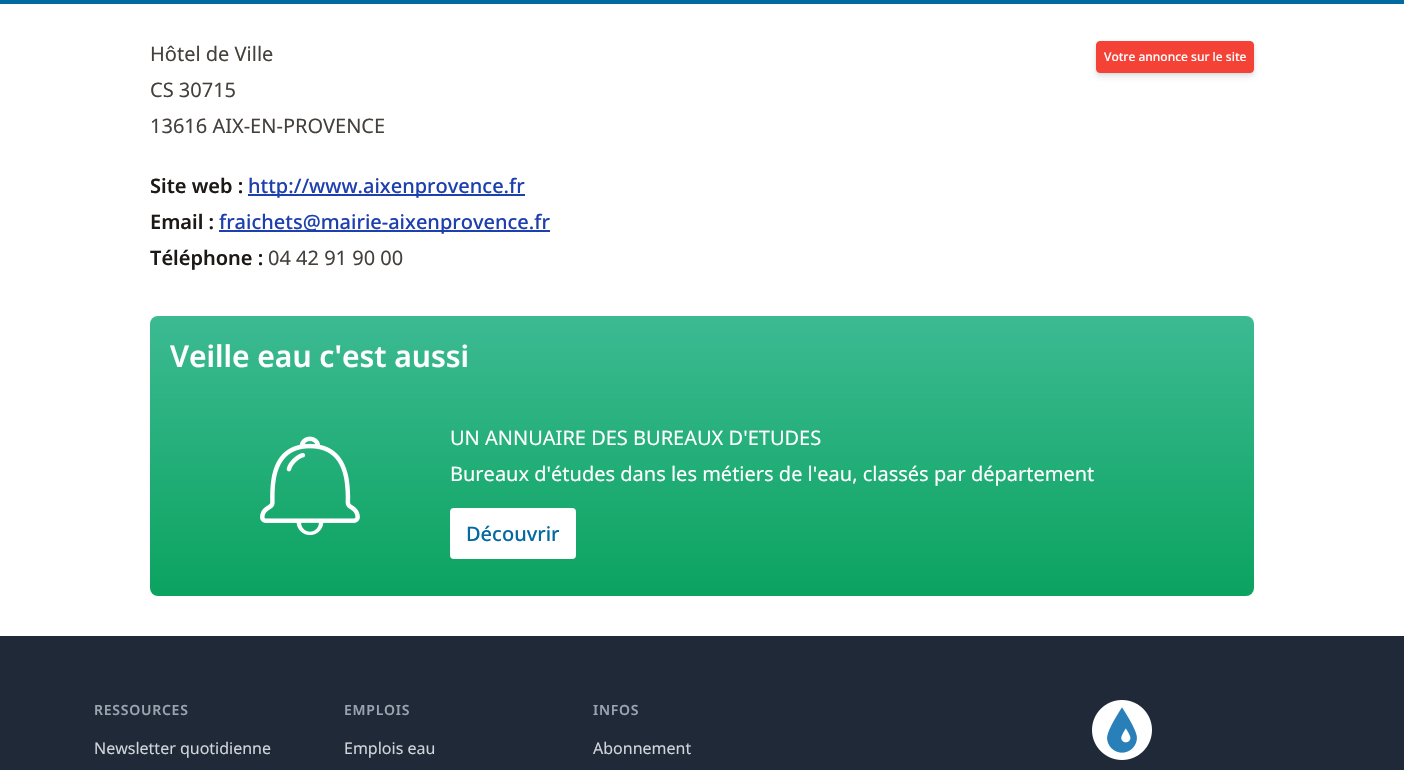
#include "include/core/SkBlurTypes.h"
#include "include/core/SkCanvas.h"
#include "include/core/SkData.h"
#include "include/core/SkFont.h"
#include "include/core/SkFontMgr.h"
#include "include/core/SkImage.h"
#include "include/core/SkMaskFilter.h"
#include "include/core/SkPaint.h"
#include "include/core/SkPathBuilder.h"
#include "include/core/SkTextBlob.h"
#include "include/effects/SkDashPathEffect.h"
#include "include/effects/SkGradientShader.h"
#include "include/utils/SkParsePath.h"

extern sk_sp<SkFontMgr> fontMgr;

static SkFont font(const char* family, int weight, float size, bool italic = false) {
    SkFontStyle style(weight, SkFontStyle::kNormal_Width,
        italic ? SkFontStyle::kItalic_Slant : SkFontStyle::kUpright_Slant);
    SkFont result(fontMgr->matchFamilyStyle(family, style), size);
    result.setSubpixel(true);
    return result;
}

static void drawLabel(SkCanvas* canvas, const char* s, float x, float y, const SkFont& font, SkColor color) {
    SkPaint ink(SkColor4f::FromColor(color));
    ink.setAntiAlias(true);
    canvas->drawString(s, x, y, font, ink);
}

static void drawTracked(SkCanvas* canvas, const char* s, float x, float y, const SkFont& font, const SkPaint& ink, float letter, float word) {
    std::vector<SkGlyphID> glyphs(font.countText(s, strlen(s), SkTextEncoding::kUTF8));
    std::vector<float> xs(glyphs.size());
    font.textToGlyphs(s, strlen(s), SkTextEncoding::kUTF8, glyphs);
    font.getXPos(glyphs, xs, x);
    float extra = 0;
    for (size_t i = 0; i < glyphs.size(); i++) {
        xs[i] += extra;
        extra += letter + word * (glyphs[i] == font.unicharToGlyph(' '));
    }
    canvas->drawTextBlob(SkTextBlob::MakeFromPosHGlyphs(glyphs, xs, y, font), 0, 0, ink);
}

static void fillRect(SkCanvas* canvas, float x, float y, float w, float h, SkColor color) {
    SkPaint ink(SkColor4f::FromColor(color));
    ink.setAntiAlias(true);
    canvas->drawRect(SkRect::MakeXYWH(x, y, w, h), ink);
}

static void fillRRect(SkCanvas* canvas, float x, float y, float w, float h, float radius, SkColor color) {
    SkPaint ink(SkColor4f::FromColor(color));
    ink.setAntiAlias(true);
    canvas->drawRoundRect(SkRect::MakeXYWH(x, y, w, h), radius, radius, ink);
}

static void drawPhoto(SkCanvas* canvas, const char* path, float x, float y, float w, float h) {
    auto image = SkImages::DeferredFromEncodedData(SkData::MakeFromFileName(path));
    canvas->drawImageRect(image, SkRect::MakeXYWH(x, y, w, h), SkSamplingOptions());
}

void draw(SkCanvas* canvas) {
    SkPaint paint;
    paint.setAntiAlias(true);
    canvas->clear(0xFFFFFFFF);
    fillRect(canvas, 0, 0, 1404, 4, 0xFF0369A1);
    SkFont font1 = font("Noto Sans", 400, 20);
    drawLabel(canvas, "Hôtel de Ville", 150, 61, font1, 0xFF44403C);
    drawLabel(canvas, "CS 30715", 150, 97, font1, 0xFF44403C);
    drawLabel(canvas, "13616 AIX-EN-PROVENCE", 150, 133, font1, 0xFF44403C);
    paint.setColor(0x14000000);
    paint.setMaskFilter(SkMaskFilter::MakeBlur(kNormal_SkBlurStyle, 1.5f));
    canvas->drawRoundRect(SkRect::MakeXYWH(1096, 42, 158, 32), 4, 4, paint);
    paint.setMaskFilter(nullptr);
    paint.setColor(0x1C32325D);
    paint.setMaskFilter(SkMaskFilter::MakeBlur(kNormal_SkBlurStyle, 3));
    canvas->drawRoundRect(SkRect::MakeXYWH(1096, 45, 158, 32), 4, 4, paint);
    paint.setMaskFilter(nullptr);
    paint.setColor(0xFFF44336);
    canvas->drawRoundRect(SkRect::MakeXYWH(1096.5f, 41.5f, 157, 31), 3.5f, 3.5f, paint);
    paint.setStroke(true);
    paint.setStrokeWidth(1);
    canvas->drawRoundRect(SkRect::MakeXYWH(1096.5f, 41.5f, 157, 31), 3.5f, 3.5f, paint);
    SkFont font2 = font("Noto Sans", 500, 12);
    drawLabel(canvas, "Votre annonce sur le site", 1104, 61, font2, 0xFFFFFFFF);
    SkFont font3 = font("Noto Sans", 600, 20);
    drawLabel(canvas, "Site web :", 150, 193, font3, 0xFF1C1917);
    fillRect(canvas, 248, 194, 277, 2, 0xFF1E40AF);
    SkFont font4 = font("Noto Sans", 500, 20);
    drawLabel(canvas, "http://www.aixenprovence.fr", 248, 193, font4, 0xFF1E40AF);
    drawLabel(canvas, "Email :", 150, 229, font3, 0xFF1C1917);
    fillRect(canvas, 219, 230, 331, 2, 0xFF1E40AF);
    drawLabel(canvas, "fraichets@mairie-aixenprovence.fr", 219, 229, font4, 0xFF1E40AF);
    drawLabel(canvas, "Téléphone :", 150, 265, font3, 0xFF1C1917);
    drawLabel(canvas, "04 42 91 90 00", 268, 265, font1, 0xFF44403C);
    paint.setStroke(false);
    {
        const SkColor colors[] = {0xFF0BA360, 0xFF3CBA92};
        const float stops[] = {0, 1};
        const SkPoint ends[] = {{702, 596}, {702, 316}};
        paint.setShader(SkGradientShader::MakeLinear(ends, colors, stops, 2, SkTileMode::kClamp));
        paint.setAlpha(255);
    }
    canvas->drawRoundRect(SkRect::MakeXYWH(150, 316, 1104, 280), 8, 8, paint);
    SkFont font5 = font("Noto Sans", 600, 30);
    drawLabel(canvas, "Veille eau c'est aussi", 170, 367, font5, 0xFFFFFFFF);
    drawPhoto(canvas, "assets/img1.png", 260, 436, 100, 100);
    drawLabel(canvas, "UN ANNUAIRE DES BUREAUX D'ETUDES", 450, 445, font1, 0xFFFFFFFF);
    drawLabel(canvas, "Bureaux d'études dans les métiers de l'eau, classés par département", 450, 481, font1, 0xFFFFFFFF);
    fillRRect(canvas, 450, 508, 126, 51, 4, 0xFFFFFFFF);
    drawLabel(canvas, "Découvrir", 466, 541, font4, 0xFF0369A1);
    fillRect(canvas, 0, 636, 1404, 134, 0xFF1F2937);
    SkFont font6 = font("Noto Sans", 600, 14);
    paint.setShader(nullptr);
    paint.setColor(0xFF9CA3AF);
    drawTracked(canvas, "RESSOURCES", 94, 715, font6, paint, 0.75f, 0);
    SkFont font7 = font("Noto Sans", 400, 16);
    drawLabel(canvas, "Newsletter quotidienne", 94, 754, font7, 0xFFD1D5DB);
    drawTracked(canvas, "EMPLOIS", 344, 715, font6, paint, 0.75f, 0);
    drawLabel(canvas, "Emplois eau", 344, 754, font7, 0xFFD1D5DB);
    drawTracked(canvas, "INFOS", 593, 715, font6, paint, 0.75f, 0);
    drawLabel(canvas, "Abonnement", 593, 754, font7, 0xFFD1D5DB);
    drawPhoto(canvas, "assets/img2.png", 1092, 700, 60, 60);
}
